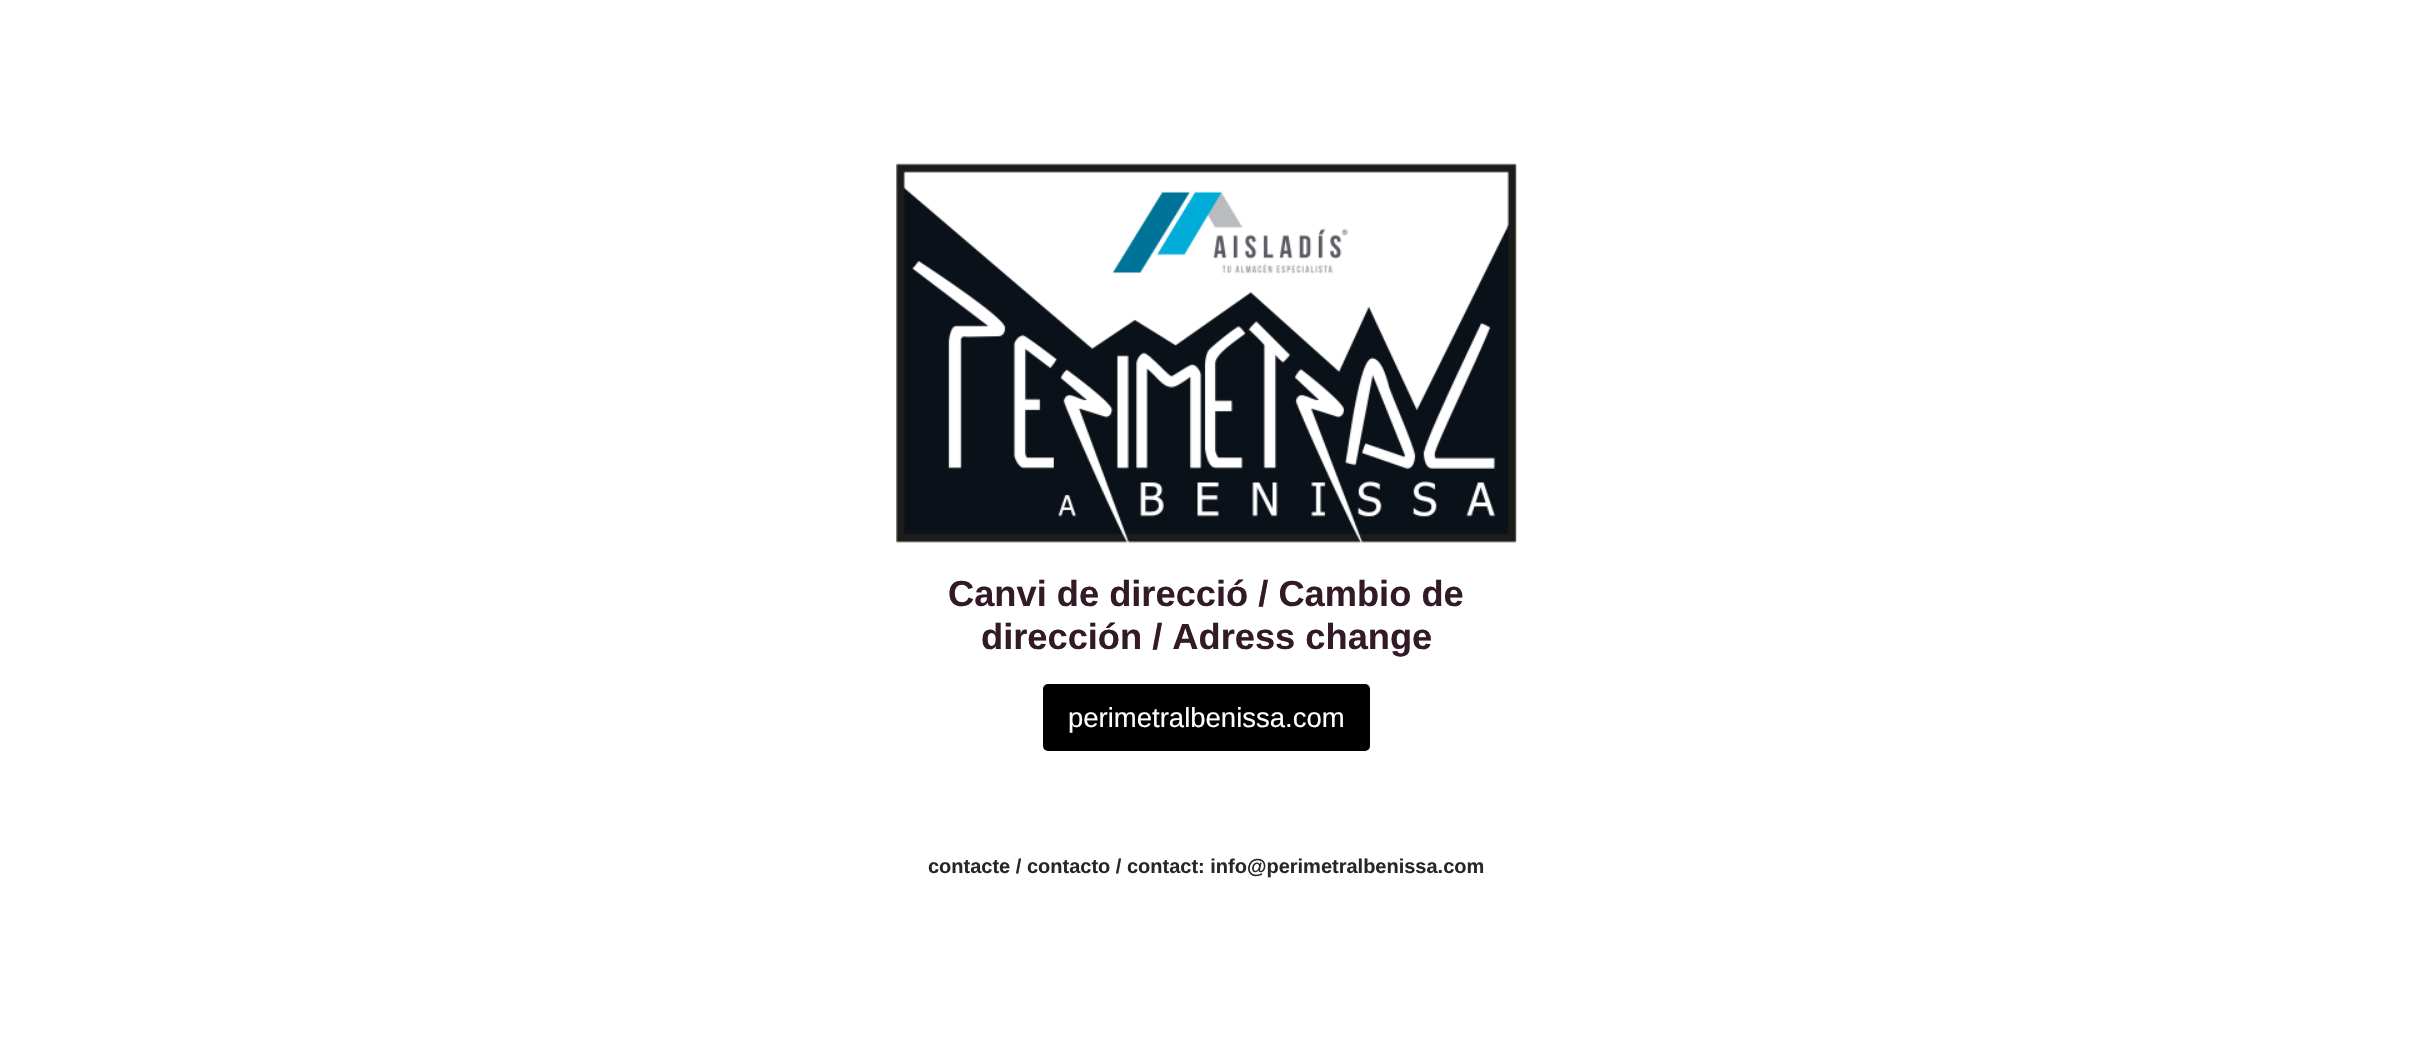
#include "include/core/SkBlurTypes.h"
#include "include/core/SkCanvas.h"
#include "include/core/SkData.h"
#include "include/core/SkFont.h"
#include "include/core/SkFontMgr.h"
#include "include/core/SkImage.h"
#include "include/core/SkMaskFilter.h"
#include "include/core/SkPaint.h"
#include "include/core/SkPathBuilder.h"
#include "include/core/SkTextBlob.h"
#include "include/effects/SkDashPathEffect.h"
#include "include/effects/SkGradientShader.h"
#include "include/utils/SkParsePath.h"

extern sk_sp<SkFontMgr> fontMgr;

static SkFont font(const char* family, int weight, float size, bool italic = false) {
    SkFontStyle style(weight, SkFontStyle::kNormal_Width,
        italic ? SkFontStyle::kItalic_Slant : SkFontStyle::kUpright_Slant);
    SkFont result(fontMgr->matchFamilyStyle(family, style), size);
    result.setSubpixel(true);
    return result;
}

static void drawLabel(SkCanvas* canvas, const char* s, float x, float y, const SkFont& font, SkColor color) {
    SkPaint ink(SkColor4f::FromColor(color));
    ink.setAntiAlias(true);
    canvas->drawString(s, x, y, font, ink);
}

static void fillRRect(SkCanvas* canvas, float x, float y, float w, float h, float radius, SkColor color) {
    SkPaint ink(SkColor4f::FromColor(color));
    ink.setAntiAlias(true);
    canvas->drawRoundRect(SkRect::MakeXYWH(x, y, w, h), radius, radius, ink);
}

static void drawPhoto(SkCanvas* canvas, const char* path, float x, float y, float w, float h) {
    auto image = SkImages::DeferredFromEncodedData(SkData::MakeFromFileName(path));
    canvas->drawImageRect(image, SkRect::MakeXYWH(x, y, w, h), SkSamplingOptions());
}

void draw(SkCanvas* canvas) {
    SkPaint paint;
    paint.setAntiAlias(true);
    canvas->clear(0xFFFFFFFF);
    drawPhoto(canvas, "assets/img1.png", 896, 163, 621, 380);
    SkFont font1 = font("Liberation Sans", 700, 36.25f);
    drawLabel(canvas, "Canvi de direcció / Cambio de", 948, 606, font1, 0xFF321B26);
    drawLabel(canvas, "dirección / Adress change", 981, 649, font1, 0xFF321B26);
    fillRRect(canvas, 1043, 684, 327, 67, 5, 0xFF000000);
    SkFont font2 = font("Liberation Sans", 400, 27.5f);
    drawLabel(canvas, "perimetralbenissa.com", 1068, 727, font2, 0xFFFFFFFF);
    SkFont font3 = font("Liberation Sans", 700, 20);
    drawLabel(canvas, "contacte / contacto / contact: info@perimetralbenissa.com", 928, 873, font3, 0xFF272727);
}
